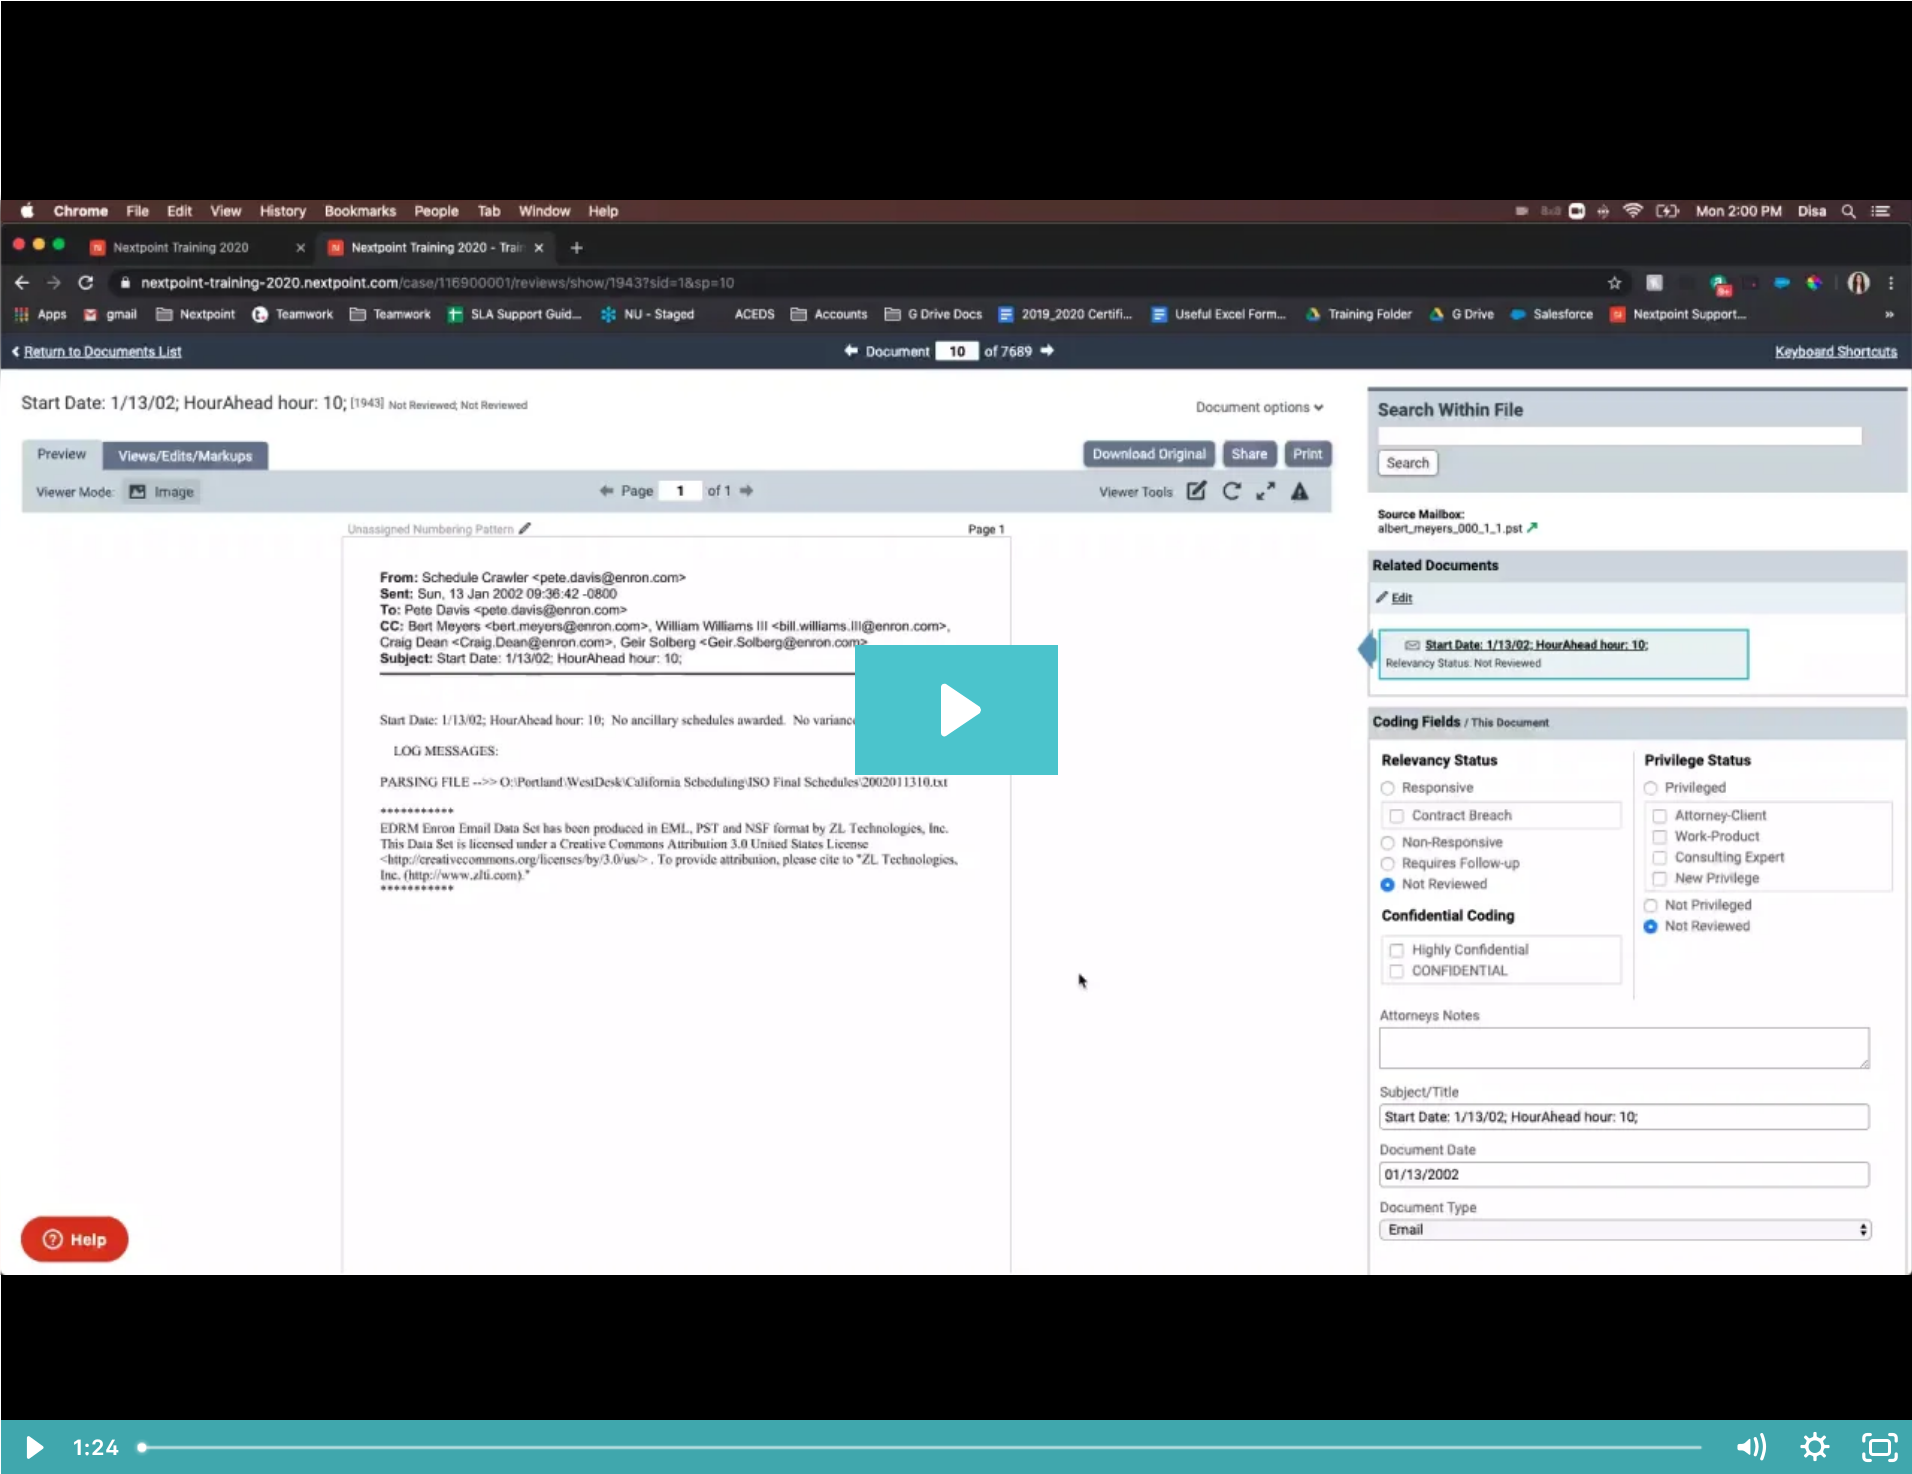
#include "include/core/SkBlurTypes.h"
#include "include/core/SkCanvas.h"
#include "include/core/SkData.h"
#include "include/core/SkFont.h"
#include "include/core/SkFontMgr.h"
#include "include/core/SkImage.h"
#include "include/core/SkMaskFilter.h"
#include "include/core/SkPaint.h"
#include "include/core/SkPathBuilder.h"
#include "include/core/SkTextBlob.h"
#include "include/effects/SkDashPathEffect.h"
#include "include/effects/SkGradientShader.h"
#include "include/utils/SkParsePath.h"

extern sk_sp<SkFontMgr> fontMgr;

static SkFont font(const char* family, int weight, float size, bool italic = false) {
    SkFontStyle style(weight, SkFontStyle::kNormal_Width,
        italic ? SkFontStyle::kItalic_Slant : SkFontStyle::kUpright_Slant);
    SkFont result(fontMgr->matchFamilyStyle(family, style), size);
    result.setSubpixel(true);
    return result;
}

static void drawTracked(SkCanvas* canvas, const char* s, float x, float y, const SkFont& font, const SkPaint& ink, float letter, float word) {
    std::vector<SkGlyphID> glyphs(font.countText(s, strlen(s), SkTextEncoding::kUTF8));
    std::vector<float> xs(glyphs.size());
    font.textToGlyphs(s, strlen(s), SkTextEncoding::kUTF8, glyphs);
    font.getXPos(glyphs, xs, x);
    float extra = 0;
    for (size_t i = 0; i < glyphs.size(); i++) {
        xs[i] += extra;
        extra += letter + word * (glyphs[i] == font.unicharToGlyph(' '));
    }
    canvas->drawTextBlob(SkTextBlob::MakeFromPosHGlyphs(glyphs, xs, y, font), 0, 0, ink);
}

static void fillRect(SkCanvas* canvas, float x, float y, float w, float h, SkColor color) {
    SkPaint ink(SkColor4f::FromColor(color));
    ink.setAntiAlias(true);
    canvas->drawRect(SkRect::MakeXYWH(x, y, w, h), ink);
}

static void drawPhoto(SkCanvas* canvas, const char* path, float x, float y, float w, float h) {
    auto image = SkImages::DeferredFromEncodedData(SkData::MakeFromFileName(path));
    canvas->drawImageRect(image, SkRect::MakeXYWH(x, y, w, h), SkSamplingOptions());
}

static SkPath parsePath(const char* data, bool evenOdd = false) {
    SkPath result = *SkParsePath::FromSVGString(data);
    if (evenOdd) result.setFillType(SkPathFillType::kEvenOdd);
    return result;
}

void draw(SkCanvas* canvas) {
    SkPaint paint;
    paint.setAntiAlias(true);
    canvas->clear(0xFFFFFFFF);
    drawPhoto(canvas, "assets/img1.png", 0, 192, 1, 1091);
    fillRect(canvas, 1, 1, 1911, 1419, 0xFF000000);
    drawPhoto(canvas, "assets/img3.png", 0, 195, 1, 1085);
    drawPhoto(canvas, "assets/img2.png", 0, 200, 1912, 1075);
    fillRect(canvas, 855, 645, 203, 130, 0xFF4BC4CC);
    paint.setColor(0xFFFFFFFF);
    canvas->drawPath(parsePath("M946 684C944 683 941 684 941 687V733C941 736 944 737 946 736L980 713C980 712 981 711 981 710C981 709 980 708 980 707Z", true), paint);
    fillRect(canvas, 1, 1420, 1911, 54, 0xFF40A7AD);
    drawPhoto(canvas, "assets/img4.png", 26, 1436, 18, 23);
    SkFont font1 = font("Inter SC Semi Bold", 600, 21);
    drawTracked(canvas, "1:24", 73, 1455, font1, paint, 1, 0);
    drawPhoto(canvas, "assets/img5.png", 133, 1439, 1570, 17);
    drawPhoto(canvas, "assets/img6.png", 1737, 1433, 30, 28);
    drawPhoto(canvas, "assets/img7.png", 1800, 1431, 30, 31);
    drawPhoto(canvas, "assets/img8.png", 1862, 1432, 36, 31);
}
